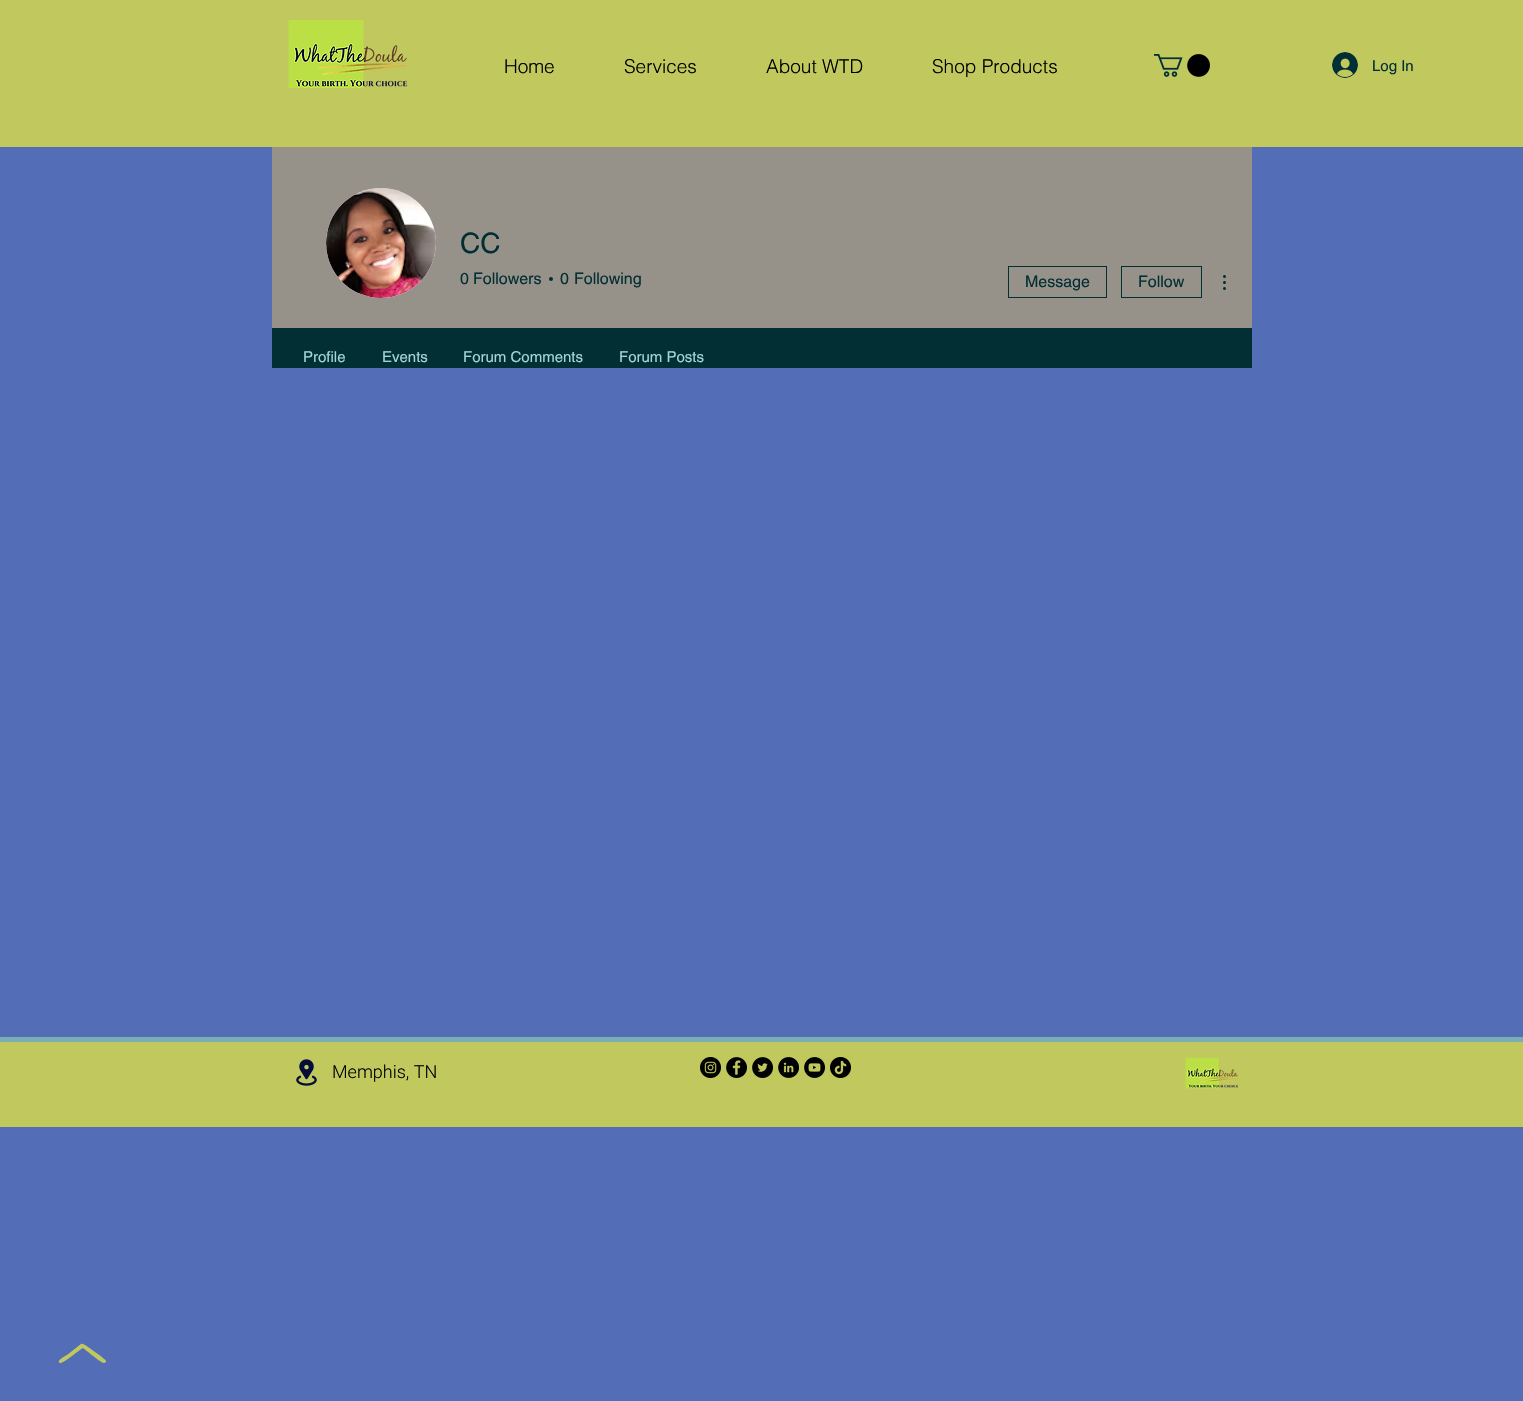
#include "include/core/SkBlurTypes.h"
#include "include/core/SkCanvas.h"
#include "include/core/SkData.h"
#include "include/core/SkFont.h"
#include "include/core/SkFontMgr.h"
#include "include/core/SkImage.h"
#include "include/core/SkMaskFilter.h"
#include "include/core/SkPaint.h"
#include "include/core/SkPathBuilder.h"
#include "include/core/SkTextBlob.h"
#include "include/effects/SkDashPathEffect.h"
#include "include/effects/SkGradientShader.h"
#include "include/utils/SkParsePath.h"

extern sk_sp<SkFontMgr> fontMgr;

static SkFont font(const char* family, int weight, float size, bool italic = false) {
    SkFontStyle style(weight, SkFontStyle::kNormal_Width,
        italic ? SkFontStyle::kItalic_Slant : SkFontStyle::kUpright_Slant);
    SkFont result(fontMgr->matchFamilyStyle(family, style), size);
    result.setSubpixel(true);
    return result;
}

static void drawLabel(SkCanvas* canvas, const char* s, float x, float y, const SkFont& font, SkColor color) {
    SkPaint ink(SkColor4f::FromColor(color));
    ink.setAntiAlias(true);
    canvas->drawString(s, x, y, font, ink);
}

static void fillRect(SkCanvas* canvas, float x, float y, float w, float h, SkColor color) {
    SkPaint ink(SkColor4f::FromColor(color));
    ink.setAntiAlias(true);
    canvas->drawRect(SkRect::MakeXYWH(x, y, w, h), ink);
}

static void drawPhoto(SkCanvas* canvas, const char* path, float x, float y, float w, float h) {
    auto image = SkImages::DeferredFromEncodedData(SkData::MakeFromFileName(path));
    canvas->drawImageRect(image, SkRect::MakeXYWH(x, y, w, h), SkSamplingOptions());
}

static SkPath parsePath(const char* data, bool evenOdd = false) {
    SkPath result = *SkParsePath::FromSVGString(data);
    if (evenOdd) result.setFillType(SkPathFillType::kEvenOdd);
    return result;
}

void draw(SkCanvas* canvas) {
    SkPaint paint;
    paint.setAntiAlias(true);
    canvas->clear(0xFF536EB7);
    fillRect(canvas, 0, 0, 1523, 147, 0xFFC1C95E);
    drawPhoto(canvas, "assets/img1.png", 288, 20, 120, 69);
    SkFont font1 = font("helvetica", 300, 19);
    drawLabel(canvas, "Home", 504, 73, font1, 0xFF000000);
    drawLabel(canvas, "Services", 624, 73, font1, 0xFF000000);
    drawLabel(canvas, "About WTD", 766, 73, font1, 0xFF000000);
    drawLabel(canvas, "Shop Products", 932, 73, font1, 0xFF000000);
    drawPhoto(canvas, "assets/img2.png", 1154, 54, 56, 23);
    drawPhoto(canvas, "assets/img3.png", 1332, 52, 26, 26);
    SkFont font2 = font("helvetica", 400, 15);
    drawLabel(canvas, "Log In", 1372, 71, font2, 0xFF022F33);
    fillRect(canvas, 272, 147, 980, 181, 0xFF969189);
    paint.setColor(0xFFD8D8D8);
    canvas->drawCircle(381, 243, 55, paint);
    drawPhoto(canvas, "assets/img4.png", 326, 188, 110, 110);
    SkFont font3 = font("helvetica", 400, 28);
    drawLabel(canvas, "CC", 460, 253, font3, 0xFF022F33);
    SkFont font4 = font("helvetica", 400, 16);
    drawLabel(canvas, "0", 460, 284, font4, 0xFF022F33);
    drawLabel(canvas, "Followers", 473, 284, font4, 0xFF022F33);
    paint.setColor(0xFF022F33);
    canvas->drawCircle(551, 279, 2, paint);
    drawLabel(canvas, "0", 560, 284, font4, 0xFF022F33);
    drawLabel(canvas, "Following", 574, 284, font4, 0xFF022F33);
    paint.setStroke(true);
    paint.setStrokeWidth(1);
    canvas->drawRect(SkRect::MakeXYWH(1008.5f, 266.5f, 98, 31), paint);
    drawLabel(canvas, "Message", 1025, 287, font4, 0xFF022F33);
    canvas->drawRect(SkRect::MakeXYWH(1121.5f, 266.5f, 80, 31), paint);
    drawLabel(canvas, "Follow", 1138, 287, font4, 0xFF022F33);
    drawPhoto(canvas, "assets/img5.png", 1223, 275, 3, 15);
    fillRect(canvas, 272, 328, 980, 40, 0xFF022F33);
    drawLabel(canvas, "Profile", 303, 362, font2, 0xFFA5D5D9);
    drawLabel(canvas, "Events", 382, 362, font2, 0xFFA5D5D9);
    drawLabel(canvas, "Forum Comments", 463, 362, font2, 0xFFA5D5D9);
    drawLabel(canvas, "Forum Posts", 619, 362, font2, 0xFFA5D5D9);
    fillRect(canvas, 0, 1042, 1523, 85, 0xFFC1C95E);
    fillRect(canvas, 0, 1037, 1523, 5, 0xFF7AAEB3);
    drawPhoto(canvas, "assets/img6.png", 296, 1059, 21, 27);
    SkFont font5 = font("Heebo", 300, 18);
    drawLabel(canvas, "Memphis, TN", 332, 1078, font5, 0xFF000000);
    drawPhoto(canvas, "assets/img7.png", 700, 1057, 21, 21);
    drawPhoto(canvas, "assets/img8.png", 726, 1057, 21, 21);
    drawPhoto(canvas, "assets/img9.png", 752, 1057, 21, 21);
    drawPhoto(canvas, "assets/img10.png", 778, 1057, 21, 21);
    drawPhoto(canvas, "assets/img11.png", 804, 1057, 21, 21);
    drawPhoto(canvas, "assets/img12.png", 830, 1057, 21, 21);
    drawPhoto(canvas, "assets/img13.png", 1185, 1057, 54, 32);
    paint.setStroke(false);
    paint.setColor(0xFFC1C95E);
    canvas->drawPath(parsePath("M104 1363C101 1363 86 1350 83 1348C79 1350 63 1364 60 1363C56 1361 62 1358 67 1355L81 1344C83 1343 86 1346 88 1347L102 1357C102 1358 107 1360 106 1362Z"), paint);
}
